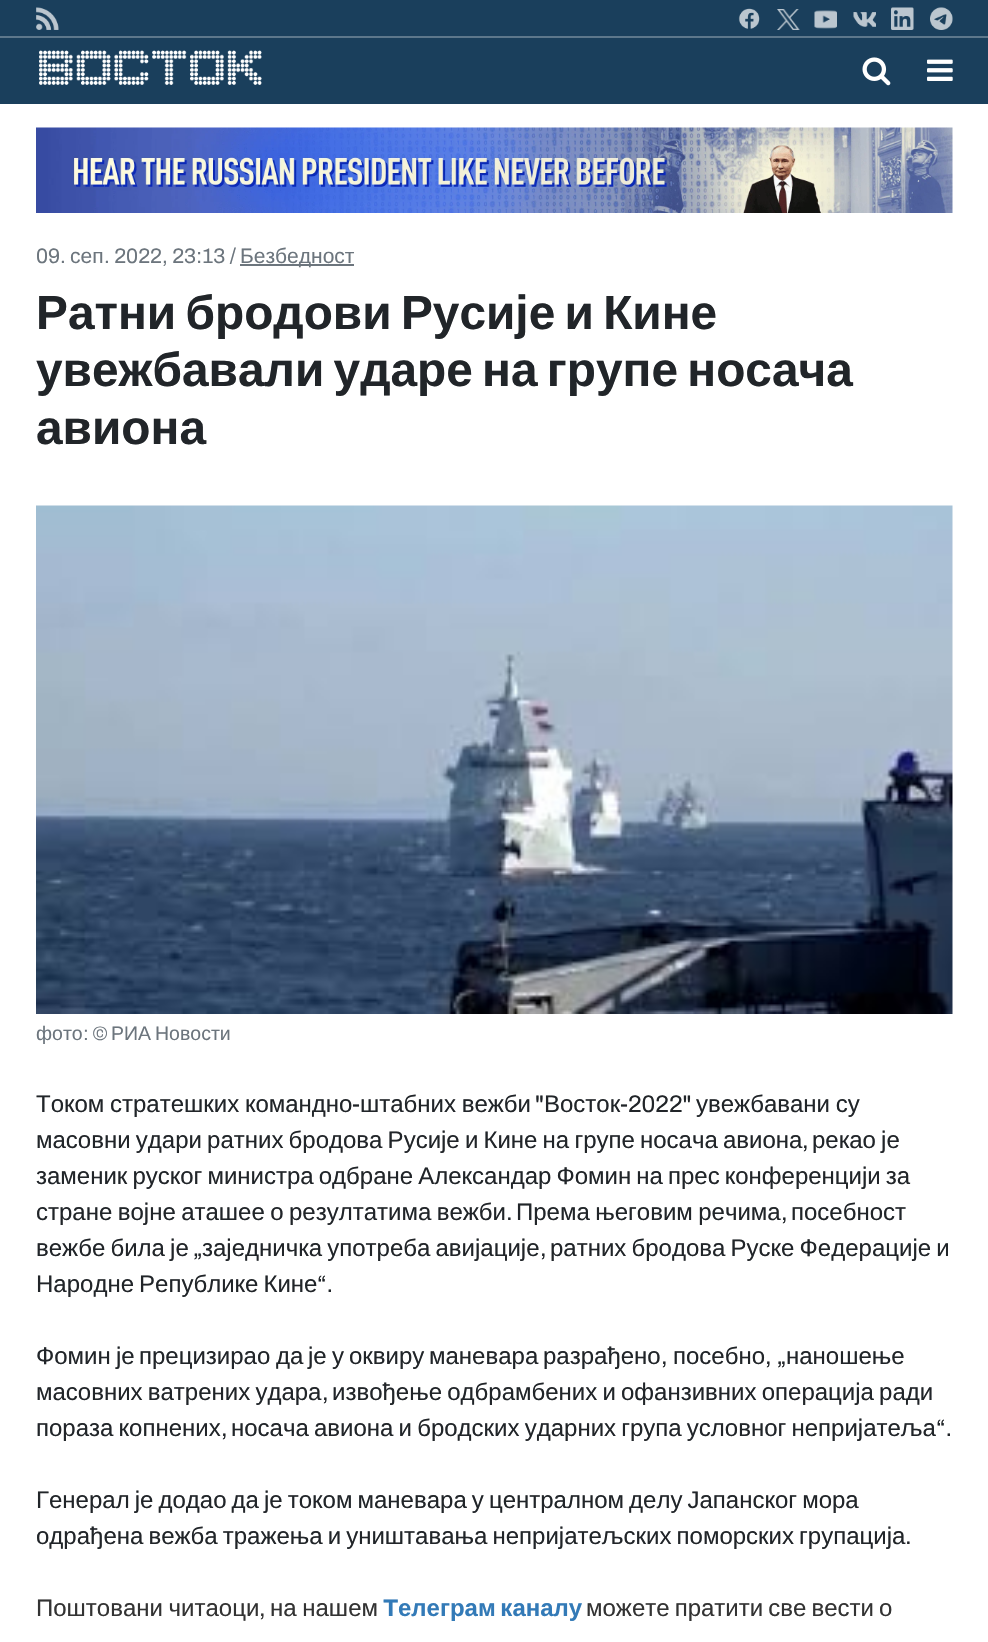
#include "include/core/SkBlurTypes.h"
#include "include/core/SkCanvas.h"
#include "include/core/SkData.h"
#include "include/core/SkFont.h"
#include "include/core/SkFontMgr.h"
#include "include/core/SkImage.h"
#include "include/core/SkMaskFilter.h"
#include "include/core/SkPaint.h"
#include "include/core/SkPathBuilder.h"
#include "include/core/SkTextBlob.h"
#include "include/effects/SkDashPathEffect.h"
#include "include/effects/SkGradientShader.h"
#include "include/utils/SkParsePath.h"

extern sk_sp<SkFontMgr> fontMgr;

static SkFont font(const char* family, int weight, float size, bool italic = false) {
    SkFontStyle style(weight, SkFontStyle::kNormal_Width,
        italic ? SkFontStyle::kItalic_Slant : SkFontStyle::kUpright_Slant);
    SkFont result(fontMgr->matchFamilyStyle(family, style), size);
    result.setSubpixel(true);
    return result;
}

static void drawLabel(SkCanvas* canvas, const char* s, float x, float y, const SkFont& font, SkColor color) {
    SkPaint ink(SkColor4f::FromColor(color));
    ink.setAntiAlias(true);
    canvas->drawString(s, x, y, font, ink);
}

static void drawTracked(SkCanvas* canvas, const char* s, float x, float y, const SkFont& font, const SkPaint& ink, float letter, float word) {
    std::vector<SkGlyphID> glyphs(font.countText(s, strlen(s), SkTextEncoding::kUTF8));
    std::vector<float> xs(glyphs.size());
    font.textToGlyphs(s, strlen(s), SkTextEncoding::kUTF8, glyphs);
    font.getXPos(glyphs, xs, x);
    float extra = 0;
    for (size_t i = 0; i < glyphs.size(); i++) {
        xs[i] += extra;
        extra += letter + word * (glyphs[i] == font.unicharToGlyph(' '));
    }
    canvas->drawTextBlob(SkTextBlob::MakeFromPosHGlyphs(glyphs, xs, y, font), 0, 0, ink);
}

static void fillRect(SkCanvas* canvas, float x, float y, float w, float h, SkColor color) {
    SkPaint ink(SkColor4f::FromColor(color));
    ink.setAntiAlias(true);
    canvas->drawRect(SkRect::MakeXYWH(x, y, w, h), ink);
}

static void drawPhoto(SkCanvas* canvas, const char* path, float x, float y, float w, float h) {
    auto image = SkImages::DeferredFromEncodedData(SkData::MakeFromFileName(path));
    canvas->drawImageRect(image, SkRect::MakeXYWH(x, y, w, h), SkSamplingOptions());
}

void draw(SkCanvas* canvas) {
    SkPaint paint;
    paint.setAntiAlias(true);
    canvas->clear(0xFFFFFFFF);
    fillRect(canvas, 0, 0, 988, 36, 0xFF1A3F5C);
    fillRect(canvas, 0, 36, 988, 2, 0xFF5D778B);
    drawPhoto(canvas, "assets/img1.png", 36, 7, 23, 23);
    drawPhoto(canvas, "assets/img2.png", 738, 8, 22, 21);
    drawPhoto(canvas, "assets/img3.png", 777, 9, 23, 21);
    drawPhoto(canvas, "assets/img4.png", 814, 10, 23, 19);
    drawPhoto(canvas, "assets/img5.png", 853, 12, 23, 15);
    drawPhoto(canvas, "assets/img6.png", 891, 7, 23, 23);
    drawPhoto(canvas, "assets/img7.png", 930, 7, 23, 23);
    fillRect(canvas, 0, 38, 988, 66, 0xFF1A3F5C);
    drawPhoto(canvas, "assets/img8.png", 39, 50, 223, 35);
    drawPhoto(canvas, "assets/img9.png", 862, 57, 29, 29);
    drawPhoto(canvas, "assets/img10.png", 927, 59, 26, 22);
    drawPhoto(canvas, "assets/img11.png", 36, 127, 917, 86);
    SkFont font1 = font("Archivo", 400, 21);
    drawLabel(canvas, "09.", 36, 263, font1, 0xFF6C757D);
    SkFont font2 = font("Liberation Sans", 400, 21);
    drawLabel(canvas, "сеп", 70, 263, font2, 0xFF6C757D);
    drawLabel(canvas, ". 2022, 23:13 /", 104, 263, font1, 0xFF6C757D);
    fillRect(canvas, 240, 264, 114, 2, 0xFF6C757D);
    drawLabel(canvas, "Безбедност", 240, 263, font2, 0xFF6C757D);
    SkFont font3 = font("Liberation Sans", 700, 47.8f);
    paint.setColor(0xFF212529);
    drawTracked(canvas, "Ратни бродови Русије и Кине", 36, 329, font3, paint, 0, -4);
    drawTracked(canvas, "увежбавали ударе на групе носача", 36, 386, font3, paint, 0, -4);
    drawLabel(canvas, "авиона", 36, 444, font3, 0xFF212529);
    drawPhoto(canvas, "assets/img12.png", 36, 505, 917, 509);
    SkFont font4 = font("Liberation Sans", 400, 19.5f);
    drawLabel(canvas, "фото", 36, 1040, font4, 0xFF6C757D);
    SkFont font5 = font("Archivo", 400, 19.5f);
    drawLabel(canvas, ": ©", 83, 1040, font5, 0xFF6C757D);
    drawLabel(canvas, "РИА", 111, 1040, font4, 0xFF6C757D);
    drawLabel(canvas, "Новости", 155, 1040, font4, 0xFF6C757D);
    SkFont font6 = font("Liberation Sans", 400, 24);
    drawTracked(canvas, "Током стратешких командно", 36, 1112, font6, paint, 0, -1);
    SkFont font7 = font("Archivo", 400, 24);
    drawLabel(canvas, "-", 352, 1112, font7, 0xFF212529);
    drawTracked(canvas, "штабних вежби", 360, 1112, font6, paint, 0, -1);
    drawLabel(canvas, "\"", 535, 1112, font7, 0xFF212529);
    drawLabel(canvas, "Восток", 544, 1112, font6, 0xFF212529);
    drawLabel(canvas, "-2022\"", 620, 1112, font7, 0xFF212529);
    drawTracked(canvas, "увежбавани су", 696, 1112, font6, paint, 0, -1);
    drawTracked(canvas, "масовни удари ратних бродова Русије и Кине на групе носача авиона", 36, 1148, font6, paint, 0, -1.5f);
    drawLabel(canvas, ",", 802, 1148, font7, 0xFF212529);
    drawTracked(canvas, "рекао је", 812, 1148, font6, paint, 0, -1.5f);
    drawTracked(canvas, "заменик руског министра одбране Александар Фомин на прес конференцији за", 36, 1184, font6, paint, 0, -1.6f);
    drawTracked(canvas, "стране војне аташее о резултатима вежби", 36, 1220, font6, paint, 0, -1.25f);
    drawLabel(canvas, ".", 506, 1220, font7, 0xFF212529);
    drawTracked(canvas, "Према његовим речима", 516, 1220, font6, paint, 0, -1.25f);
    drawLabel(canvas, ",", 781, 1220, font7, 0xFF212529);
    drawLabel(canvas, "посебност", 791, 1220, font6, 0xFF212529);
    drawTracked(canvas, "вежбе била је", 36, 1256, font6, paint, 0, -1.5f);
    drawLabel(canvas, "„", 193, 1256, font7, 0xFF212529);
    drawTracked(canvas, "заједничка употреба авијације", 202, 1256, font6, paint, 0, -1.5f);
    drawLabel(canvas, ",", 540, 1256, font7, 0xFF212529);
    drawTracked(canvas, "ратних бродова Руске Федерације и", 550, 1256, font6, paint, 0, -1.5f);
    drawTracked(canvas, "Народне Републике Кине", 36, 1292, font6, paint, 0, -1.6f);
    drawLabel(canvas, "“.", 317, 1292, font7, 0xFF212529);
    drawLabel(canvas, "Фомин", 36, 1364, font6, 0xFF212529);
    drawLabel(canvas, "је", 116, 1364, font6, 0xFF212529);
    drawLabel(canvas, "прецизирао", 139, 1364, font6, 0xFF212529);
    drawLabel(canvas, "да", 276, 1364, font6, 0xFF212529);
    drawLabel(canvas, "је", 308, 1364, font6, 0xFF212529);
    drawLabel(canvas, "у", 332, 1364, font6, 0xFF212529);
    drawLabel(canvas, "оквиру", 349, 1364, font6, 0xFF212529);
    drawLabel(canvas, "маневара", 429, 1364, font6, 0xFF212529);
    drawLabel(canvas, "разрађено", 543, 1364, font6, 0xFF212529);
    drawLabel(canvas, ",", 661, 1364, font7, 0xFF212529);
    drawLabel(canvas, "посебно", 673, 1364, font6, 0xFF212529);
    drawLabel(canvas, ", „", 765, 1364, font7, 0xFF212529);
    drawLabel(canvas, "наношење", 786, 1364, font6, 0xFF212529);
    drawTracked(canvas, "масовних ватрених удара", 36, 1400, font6, paint, 0, -1.5f);
    drawLabel(canvas, ",", 322, 1400, font7, 0xFF212529);
    drawTracked(canvas, "извођење одбрамбених и офанзивних операција ради", 332, 1400, font6, paint, 0, -1.5f);
    drawTracked(canvas, "пораза копнених", 36, 1436, font6, paint, 0, -1.5f);
    drawLabel(canvas, ",", 221, 1436, font7, 0xFF212529);
    drawTracked(canvas, "носача авиона и бродских ударних група условног непријатеља", 231, 1436, font6, paint, 0, -1.5f);
    drawLabel(canvas, "“.", 936, 1436, font7, 0xFF212529);
    drawTracked(canvas, "Генерал је додао да је током маневара у централном делу Јапанског мора", 36, 1508, font6, paint, 0, -1.6f);
    drawTracked(canvas, "одрађена вежба тражења и уништавања непријатељских поморских групација", 36, 1544, font6, paint, 0, -1.6f);
    drawLabel(canvas, ".", 905, 1544, font7, 0xFF212529);
    paint.setColor(0xFF333333);
    drawTracked(canvas, "Поштовани читаоци", 36, 1616, font6, paint, 0, -1);
    drawLabel(canvas, ",", 259, 1616, font7, 0xFF333333);
    drawTracked(canvas, "на нашем", 270, 1616, font6, paint, 0, -1);
    SkFont font8 = font("Archivo", 700, 24);
    drawLabel(canvas, "T", 383, 1616, font8, 0xFF337AB7);
    SkFont font9 = font("Liberation Sans", 700, 24);
    paint.setColor(0xFF337AB7);
    drawTracked(canvas, "елеграм каналу", 398, 1616, font9, paint, 0, -2);
    paint.setColor(0xFF333333);
    drawTracked(canvas, "можете пратити све вести о", 586, 1616, font6, paint, 0, -1.6f);
}
